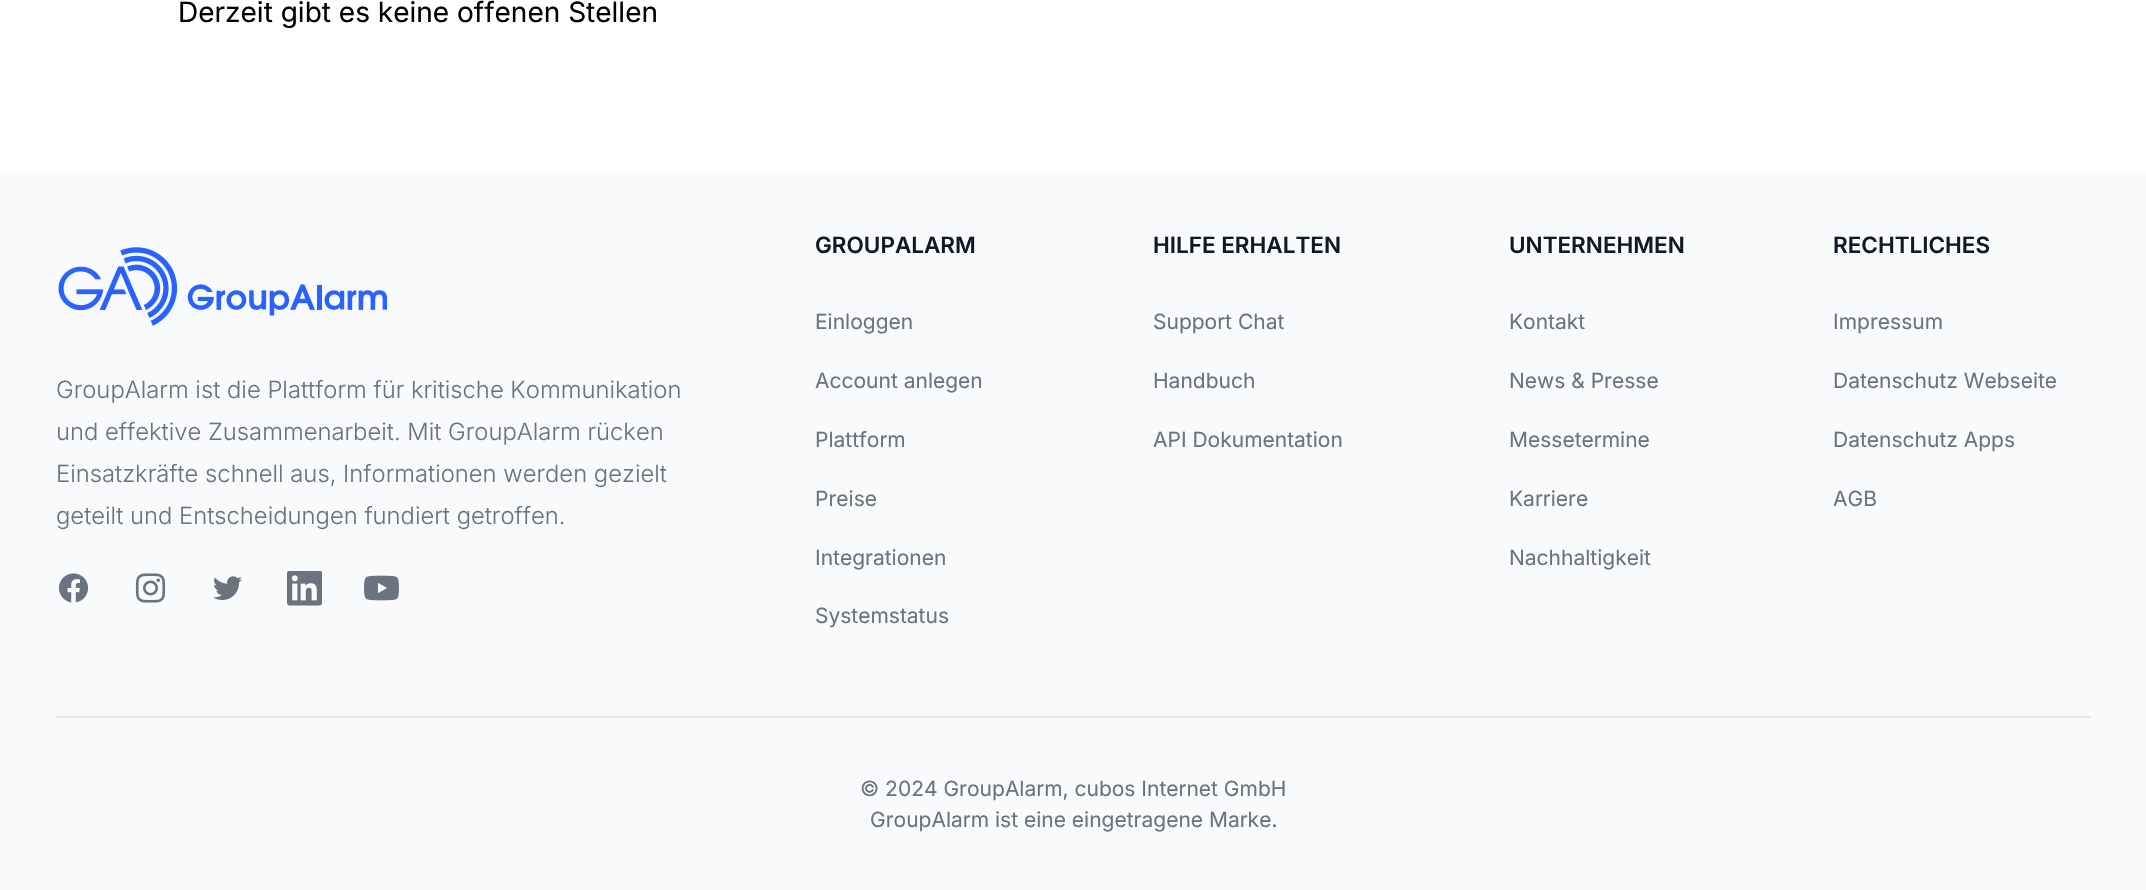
#include "include/core/SkBlurTypes.h"
#include "include/core/SkCanvas.h"
#include "include/core/SkData.h"
#include "include/core/SkFont.h"
#include "include/core/SkFontMgr.h"
#include "include/core/SkImage.h"
#include "include/core/SkMaskFilter.h"
#include "include/core/SkPaint.h"
#include "include/core/SkPathBuilder.h"
#include "include/core/SkTextBlob.h"
#include "include/effects/SkDashPathEffect.h"
#include "include/effects/SkGradientShader.h"
#include "include/utils/SkParsePath.h"

extern sk_sp<SkFontMgr> fontMgr;

static SkFont font(const char* family, int weight, float size, bool italic = false) {
    SkFontStyle style(weight, SkFontStyle::kNormal_Width,
        italic ? SkFontStyle::kItalic_Slant : SkFontStyle::kUpright_Slant);
    SkFont result(fontMgr->matchFamilyStyle(family, style), size);
    result.setSubpixel(true);
    return result;
}

static void drawLabel(SkCanvas* canvas, const char* s, float x, float y, const SkFont& font, SkColor color) {
    SkPaint ink(SkColor4f::FromColor(color));
    ink.setAntiAlias(true);
    canvas->drawString(s, x, y, font, ink);
}

static void fillRect(SkCanvas* canvas, float x, float y, float w, float h, SkColor color) {
    SkPaint ink(SkColor4f::FromColor(color));
    ink.setAntiAlias(true);
    canvas->drawRect(SkRect::MakeXYWH(x, y, w, h), ink);
}

static void drawPhoto(SkCanvas* canvas, const char* path, float x, float y, float w, float h) {
    auto image = SkImages::DeferredFromEncodedData(SkData::MakeFromFileName(path));
    canvas->drawImageRect(image, SkRect::MakeXYWH(x, y, w, h), SkSamplingOptions());
}

void draw(SkCanvas* canvas) {
    SkPaint paint;
    paint.setAntiAlias(true);
    canvas->clear(0xFFFFFFFF);
    SkFont font1 = font("Inter", 400, 28);
    drawLabel(canvas, "Derzeit gibt es keine offenen Stellen", 178, 22, font1, 0xFF000000);
    fillRect(canvas, 0, 172, 2146, 718, 0xFFF9FAFB);
    drawPhoto(canvas, "assets/img1.png", 58, 247, 330, 79);
    SkFont font2 = font("Inter", 300, 23.8f);
    drawLabel(canvas, "GroupAlarm ist die Plattform für kritische Kommunikation", 56, 398, font2, 0xFF6B7280);
    drawLabel(canvas, "und effektive Zusammenarbeit. Mit GroupAlarm rücken", 56, 440, font2, 0xFF6B7280);
    drawLabel(canvas, "Einsatzkräfte schnell aus, Informationen werden gezielt", 56, 482, font2, 0xFF6B7280);
    drawLabel(canvas, "geteilt und Entscheidungen fundiert getroffen.", 56, 524, font2, 0xFF6B7280);
    drawPhoto(canvas, "assets/img2.png", 58, 573, 31, 30);
    drawPhoto(canvas, "assets/img3.png", 135, 573, 31, 30);
    drawPhoto(canvas, "assets/img4.png", 213, 576, 29, 24);
    drawPhoto(canvas, "assets/img5.png", 287, 571, 35, 35);
    drawPhoto(canvas, "assets/img6.png", 364, 575, 35, 26);
    SkFont font3 = font("Inter", 600, 22.5f);
    drawLabel(canvas, "GROUPALARM", 815, 253, font3, 0xFF111827);
    SkFont font4 = font("Inter", 400, 21);
    drawLabel(canvas, "Einloggen", 815, 329, font4, 0xFF6B7280);
    drawLabel(canvas, "Account anlegen", 815, 388, font4, 0xFF6B7280);
    drawLabel(canvas, "Plattform", 815, 447, font4, 0xFF6B7280);
    drawLabel(canvas, "Preise", 815, 506, font4, 0xFF6B7280);
    drawLabel(canvas, "Integrationen", 815, 565, font4, 0xFF6B7280);
    drawLabel(canvas, "Systemstatus", 815, 623, font4, 0xFF6B7280);
    drawLabel(canvas, "HILFE ERHALTEN", 1153, 253, font3, 0xFF111827);
    drawLabel(canvas, "Support Chat", 1153, 329, font4, 0xFF6B7280);
    drawLabel(canvas, "Handbuch", 1153, 388, font4, 0xFF6B7280);
    drawLabel(canvas, "API Dokumentation", 1153, 447, font4, 0xFF6B7280);
    drawLabel(canvas, "UNTERNEHMEN", 1509, 253, font3, 0xFF111827);
    drawLabel(canvas, "Kontakt", 1509, 329, font4, 0xFF6B7280);
    drawLabel(canvas, "News & Presse", 1509, 388, font4, 0xFF6B7280);
    drawLabel(canvas, "Messetermine", 1509, 447, font4, 0xFF6B7280);
    drawLabel(canvas, "Karriere", 1509, 506, font4, 0xFF6B7280);
    drawLabel(canvas, "Nachhaltigkeit", 1509, 565, font4, 0xFF6B7280);
    drawLabel(canvas, "RECHTLICHES", 1833, 253, font3, 0xFF111827);
    drawLabel(canvas, "Impressum", 1833, 329, font4, 0xFF6B7280);
    drawLabel(canvas, "Datenschutz Webseite", 1833, 388, font4, 0xFF6B7280);
    drawLabel(canvas, "Datenschutz Apps", 1833, 447, font4, 0xFF6B7280);
    drawLabel(canvas, "AGB", 1833, 506, font4, 0xFF6B7280);
    fillRect(canvas, 56, 716, 2035, 2, 0xFFE5E7EB);
    drawLabel(canvas, "© 2024 GroupAlarm, cubos Internet GmbH", 860, 796, font4, 0xFF6B7280);
    drawLabel(canvas, "GroupAlarm ist eine eingetragene Marke.", 870, 827, font4, 0xFF6B7280);
}
